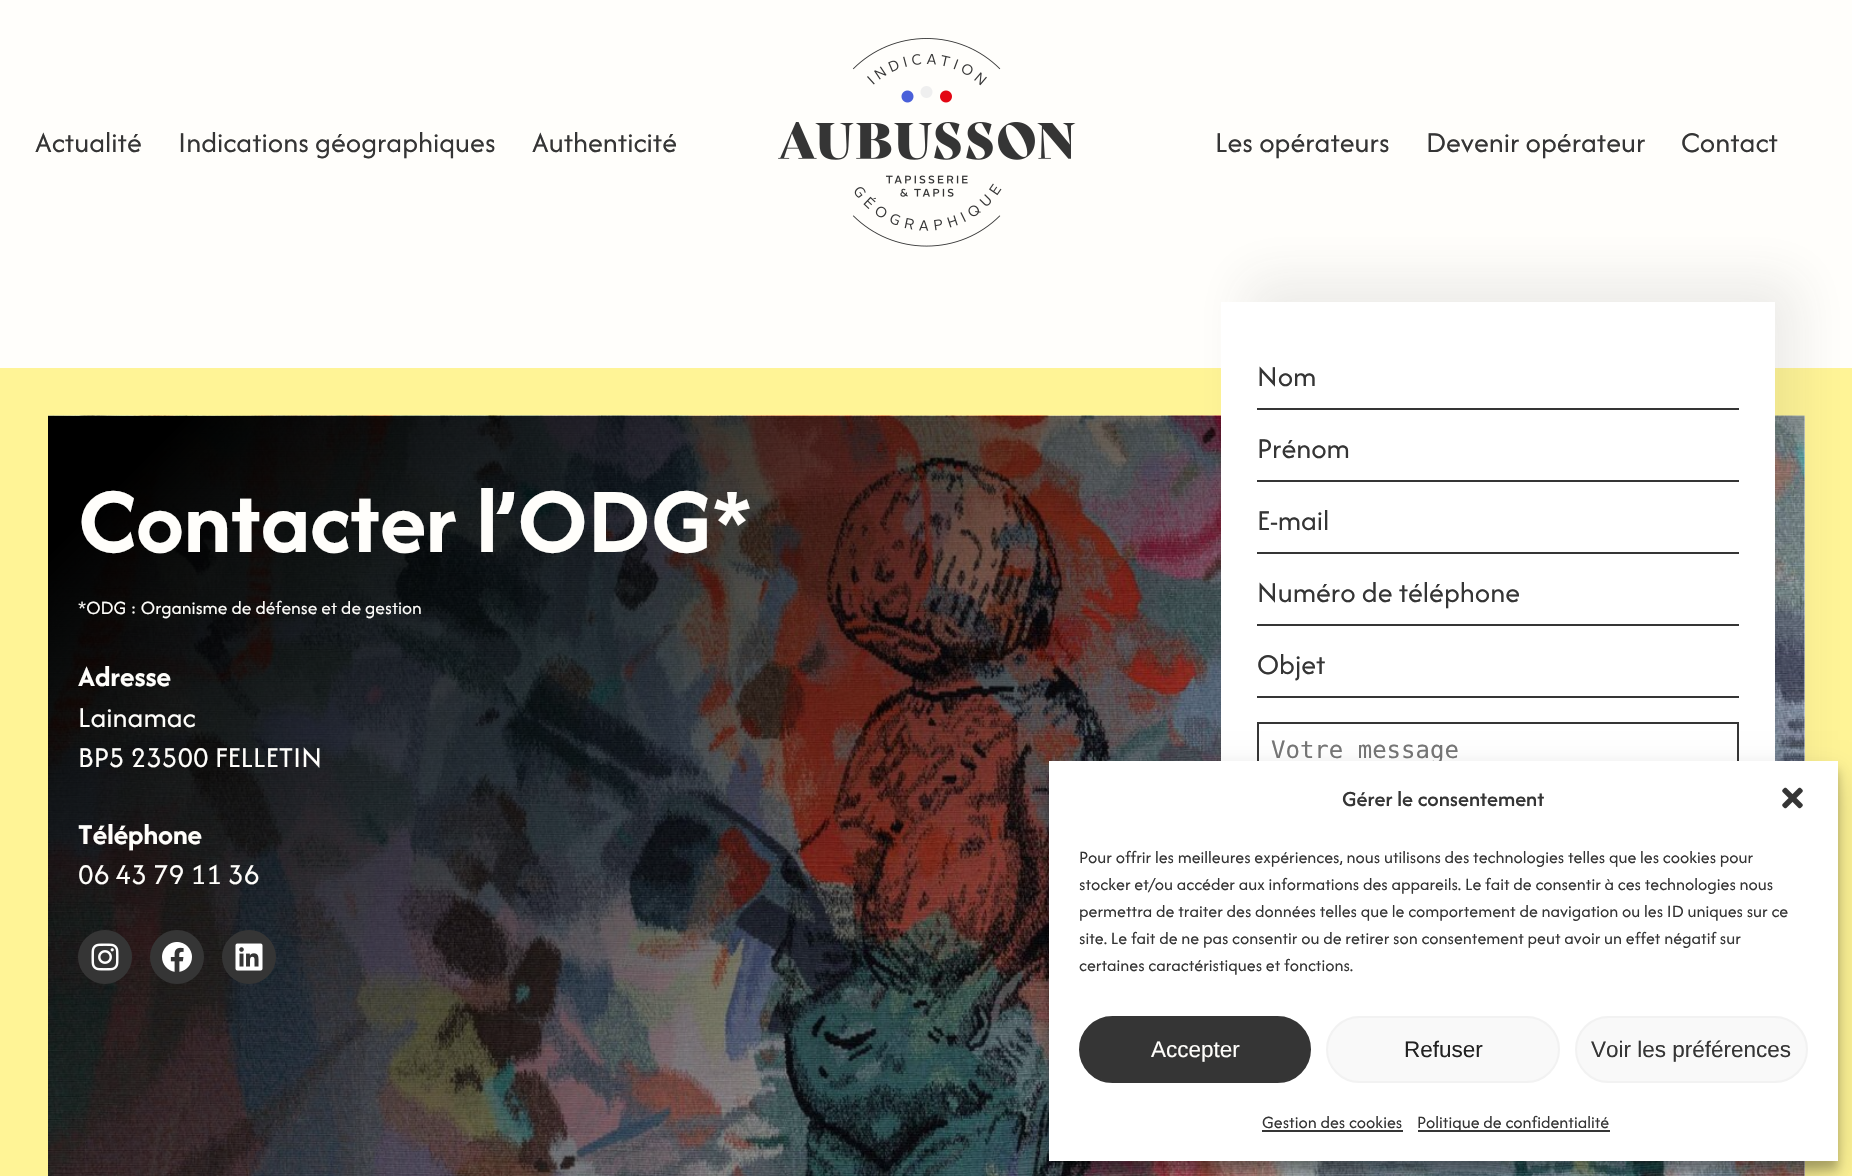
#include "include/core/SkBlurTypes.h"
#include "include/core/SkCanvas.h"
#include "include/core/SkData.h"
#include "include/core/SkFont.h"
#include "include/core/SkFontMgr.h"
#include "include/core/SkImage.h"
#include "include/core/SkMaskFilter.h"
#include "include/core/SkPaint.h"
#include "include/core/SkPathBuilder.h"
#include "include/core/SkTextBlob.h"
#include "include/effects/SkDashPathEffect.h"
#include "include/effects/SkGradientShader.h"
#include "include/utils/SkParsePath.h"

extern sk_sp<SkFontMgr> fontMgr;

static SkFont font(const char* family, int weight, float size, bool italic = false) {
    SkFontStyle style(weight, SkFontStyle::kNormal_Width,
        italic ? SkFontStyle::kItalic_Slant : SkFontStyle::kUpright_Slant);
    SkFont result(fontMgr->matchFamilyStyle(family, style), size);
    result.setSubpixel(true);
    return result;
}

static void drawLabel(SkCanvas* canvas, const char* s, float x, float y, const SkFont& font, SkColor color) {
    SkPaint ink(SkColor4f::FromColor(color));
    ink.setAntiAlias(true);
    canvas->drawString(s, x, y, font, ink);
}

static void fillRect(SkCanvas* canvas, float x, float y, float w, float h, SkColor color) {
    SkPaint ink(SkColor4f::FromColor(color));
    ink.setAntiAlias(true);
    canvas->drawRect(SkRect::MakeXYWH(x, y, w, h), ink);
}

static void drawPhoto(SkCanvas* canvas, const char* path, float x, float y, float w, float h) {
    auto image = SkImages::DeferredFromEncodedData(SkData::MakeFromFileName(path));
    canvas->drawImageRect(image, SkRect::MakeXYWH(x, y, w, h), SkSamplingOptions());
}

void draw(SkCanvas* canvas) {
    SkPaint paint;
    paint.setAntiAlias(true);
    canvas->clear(0xFFFFFEFB);
    SkFont font1 = font("Afacad", 400, 30);
    drawLabel(canvas, "Actualité", 35, 152, font1, 0xFF353535);
    drawLabel(canvas, "Indications géographiques", 178, 152, font1, 0xFF353535);
    drawLabel(canvas, "Authenticité", 532, 152, font1, 0xFF353535);
    drawPhoto(canvas, "assets/img1.png", 778, 38, 298, 209);
    drawLabel(canvas, "Les opérateurs", 1215, 152, font1, 0xFF353535);
    drawLabel(canvas, "Devenir opérateur", 1426, 152, font1, 0xFF353535);
    drawLabel(canvas, "Contact", 1681, 152, font1, 0xFF353535);
    paint.setStroke(true);
    paint.setStrokeWidth(48);
    paint.setColor(0xFFFFF496);
    canvas->drawRect(SkRect::MakeXYWH(24, 392, 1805, 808), paint);
    drawPhoto(canvas, "assets/img5.png", 48, 415, 1757, 761);
    paint.setStroke(false);
    {
        const SkColor colors[] = {0xFF000000, 0x00000000};
        const float stops[] = {0.05f, 0.7f};
        const SkPoint ends[] = {{239, 225}, {1614, 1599}};
        paint.setShader(SkGradientShader::MakeLinear(ends, colors, stops, 2, SkTileMode::kClamp));
        paint.setAlpha(255);
    }
    canvas->drawRect(SkRect::MakeXYWH(48, 416, 1757, 760), paint);
    SkFont font2 = font("Afacad", 700, 96);
    drawLabel(canvas, "Contacter l’ODG*", 78, 552, font2, 0xFFFFFEFB);
    SkFont font3 = font("Afacad", 400, 19.5f);
    drawLabel(canvas, "*ODG : Organisme de défense et de gestion", 78, 614, font3, 0xFFFFFEFB);
    SkFont font4 = font("Afacad", 700, 30);
    drawLabel(canvas, "Adresse", 78, 686, font4, 0xFFFFFEFB);
    drawLabel(canvas, "Lainamac", 78, 727, font1, 0xFFFFFEFB);
    drawLabel(canvas, "BP5 23500 FELLETIN", 78, 767, font1, 0xFFFFFEFB);
    drawLabel(canvas, "Téléphone", 78, 844, font4, 0xFFFFFEFB);
    drawLabel(canvas, "06 43 79 11 36", 78, 884, font1, 0xFFFFFEFB);
    paint.setShader(nullptr);
    paint.setColor(0xFF353535);
    canvas->drawCircle(105, 957, 27, paint);
    drawPhoto(canvas, "assets/img2.png", 91, 943, 28, 28);
    canvas->drawCircle(177, 957, 27, paint);
    drawPhoto(canvas, "assets/img3.png", 162, 942, 30, 30);
    canvas->drawCircle(249, 957, 27, paint);
    drawPhoto(canvas, "assets/img4.png", 235, 943, 28, 28);
    paint.setColor(0x17353535);
    paint.setMaskFilter(SkMaskFilter::MakeBlur(kNormal_SkBlurStyle, 24));
    canvas->drawRect(SkRect::MakeXYWH(1245, 278, 554, 835), paint);
    paint.setMaskFilter(nullptr);
    fillRect(canvas, 1221, 302, 554, 459, 0xFFFFFFFF);
    fillRect(canvas, 1257, 408, 482, 2, 0xFF353535);
    drawLabel(canvas, "Nom", 1257, 386, font1, 0xFF353535);
    fillRect(canvas, 1257, 480, 482, 2, 0xFF353535);
    drawLabel(canvas, "Prénom", 1257, 458, font1, 0xFF353535);
    fillRect(canvas, 1257, 552, 482, 2, 0xFF353535);
    drawLabel(canvas, "E-mail", 1257, 530, font1, 0xFF353535);
    fillRect(canvas, 1257, 624, 482, 2, 0xFF353535);
    drawLabel(canvas, "Numéro de téléphone", 1257, 602, font1, 0xFF353535);
    fillRect(canvas, 1257, 696, 482, 2, 0xFF353535);
    drawLabel(canvas, "Objet", 1257, 674, font1, 0xFF353535);
    paint.setStroke(true);
    paint.setStrokeWidth(2);
    paint.setColor(0xFF353535);
    canvas->drawRect(SkRect::MakeXYWH(1258, 723, 480, 250), paint);
    SkFont font5 = font("DejaVu Sans Mono", 400, 24);
    drawLabel(canvas, "Votre message", 1271, 758, font5, 0xFF757575);
    paint.setStroke(false);
    paint.setColor(0x3B000000);
    paint.setMaskFilter(SkMaskFilter::MakeBlur(kNormal_SkBlurStyle, 4.5f));
    canvas->drawRect(SkRect::MakeXYWH(1049, 770, 789, 400), paint);
    paint.setMaskFilter(nullptr);
    paint.setColor(0x30000000);
    paint.setMaskFilter(SkMaskFilter::MakeBlur(kNormal_SkBlurStyle, 15));
    canvas->drawRect(SkRect::MakeXYWH(1049, 776, 789, 400), paint);
    paint.setMaskFilter(nullptr);
    fillRect(canvas, 1049, 761, 789, 400, 0xFFFFFFFF);
    SkFont font6 = font("Afacad", 500, 22.5f);
    drawLabel(canvas, "Gérer le consentement", 1342, 806, font6, 0xFF353535);
    drawPhoto(canvas, "assets/img6.png", 1782, 787, 21, 22);
    SkFont font7 = font("Afacad", 400, 18);
    drawLabel(canvas, "Pour offrir les meilleures expériences, nous utilisons des technologies telles que les cookies pour", 1079, 863, font7, 0xFF353535);
    drawLabel(canvas, "stocker et/ou accéder aux informations des appareils. Le fait de consentir à ces technologies nous", 1079, 890, font7, 0xFF353535);
    drawLabel(canvas, "permettra de traiter des données telles que le comportement de navigation ou les ID uniques sur ce", 1079, 917, font7, 0xFF353535);
    drawLabel(canvas, "site. Le fait de ne pas consentir ou de retirer son consentement peut avoir un effet négatif sur", 1079, 944, font7, 0xFF353535);
    drawLabel(canvas, "certaines caractéristiques et fonctions.", 1079, 971, font7, 0xFF353535);
    paint.setColor(0xFF353535);
    canvas->drawRoundRect(SkRect::MakeXYWH(1080, 1017, 230, 65), 32.5f, 32.5f, paint);
    paint.setStroke(true);
    canvas->drawRoundRect(SkRect::MakeXYWH(1080, 1017, 230, 65), 32.5f, 32.5f, paint);
    SkFont font8 = font("Liberation Sans", 400, 22.5f);
    drawLabel(canvas, "Accepter", 1151, 1057, font8, 0xFFFFFEFB);
    paint.setStroke(false);
    paint.setColor(0xFFF9F9F9);
    canvas->drawRoundRect(SkRect::MakeXYWH(1327, 1017, 232, 65), 32.5f, 32.5f, paint);
    paint.setStroke(true);
    paint.setColor(0xFFF2F2F2);
    canvas->drawRoundRect(SkRect::MakeXYWH(1327, 1017, 232, 65), 32.5f, 32.5f, paint);
    drawLabel(canvas, "Refuser", 1404, 1057, font8, 0xFF222222);
    paint.setStroke(false);
    paint.setColor(0xFFF9F9F9);
    canvas->drawRoundRect(SkRect::MakeXYWH(1576, 1017, 231, 65), 32.5f, 32.5f, paint);
    paint.setStroke(true);
    paint.setColor(0xFFF2F2F2);
    canvas->drawRoundRect(SkRect::MakeXYWH(1576, 1017, 231, 65), 32.5f, 32.5f, paint);
    drawLabel(canvas, "Voir les préférences", 1591, 1057, font8, 0xFF353535);
    drawLabel(canvas, "Gestion des cookies", 1262, 1128, font7, 0xFF353535);
    fillRect(canvas, 1262, 1130, 141, 2, 0xFF353535);
    fillRect(canvas, 1418, 1130, 192, 2, 0xFF353535);
    drawLabel(canvas, "Politique de confidentialité", 1417, 1128, font7, 0xFF353535);
}
